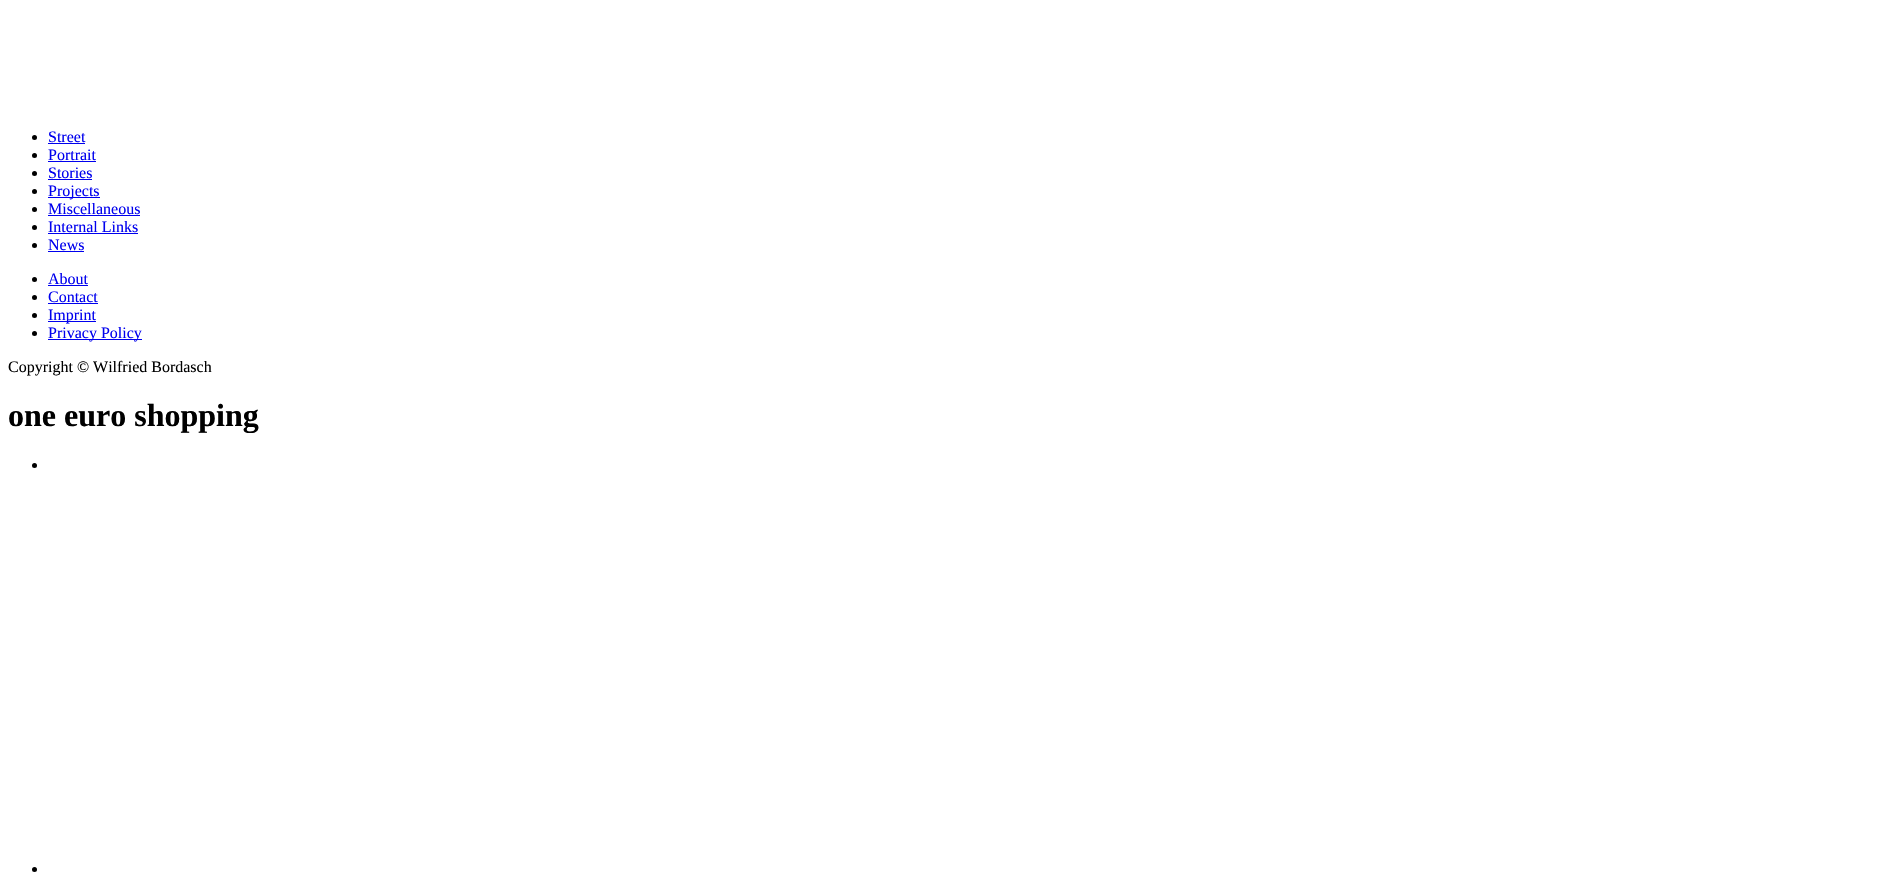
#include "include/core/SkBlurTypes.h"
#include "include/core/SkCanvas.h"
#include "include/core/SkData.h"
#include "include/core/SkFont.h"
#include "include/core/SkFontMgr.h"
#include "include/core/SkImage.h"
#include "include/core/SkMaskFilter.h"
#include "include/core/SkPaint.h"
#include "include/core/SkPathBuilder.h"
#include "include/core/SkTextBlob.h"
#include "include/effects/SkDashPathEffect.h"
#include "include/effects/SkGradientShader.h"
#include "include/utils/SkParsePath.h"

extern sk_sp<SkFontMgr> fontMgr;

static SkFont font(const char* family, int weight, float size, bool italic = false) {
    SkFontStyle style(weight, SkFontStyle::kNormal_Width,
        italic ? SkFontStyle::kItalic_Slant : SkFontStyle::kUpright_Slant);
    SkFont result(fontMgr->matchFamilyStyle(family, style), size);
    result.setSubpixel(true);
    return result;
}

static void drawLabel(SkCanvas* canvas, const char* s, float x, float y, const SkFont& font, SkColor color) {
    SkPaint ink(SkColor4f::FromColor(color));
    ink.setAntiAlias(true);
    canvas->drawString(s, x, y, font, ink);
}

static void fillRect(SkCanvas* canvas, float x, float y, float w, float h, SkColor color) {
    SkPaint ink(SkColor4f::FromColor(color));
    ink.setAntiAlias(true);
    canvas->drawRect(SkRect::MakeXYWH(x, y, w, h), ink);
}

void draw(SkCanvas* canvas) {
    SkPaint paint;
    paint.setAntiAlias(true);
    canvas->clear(0xFFFFFFFF);
    paint.setColor(0xFF000000);
    canvas->drawCircle(34.5f, 137.5f, 2.5f, paint);
    SkFont font1 = font("Liberation Serif", 400, 16);
    drawLabel(canvas, "Street", 48, 142, font1, 0xFF0000EE);
    fillRect(canvas, 48, 143, 37, 1, 0xFF0000EE);
    canvas->drawCircle(34.5f, 155.5f, 2.5f, paint);
    drawLabel(canvas, "Portrait", 48, 160, font1, 0xFF0000EE);
    fillRect(canvas, 48, 161, 48, 1, 0xFF0000EE);
    canvas->drawCircle(34.5f, 173.5f, 2.5f, paint);
    drawLabel(canvas, "Stories", 48, 178, font1, 0xFF0000EE);
    fillRect(canvas, 48, 179, 44, 1, 0xFF0000EE);
    canvas->drawCircle(34.5f, 191.5f, 2.5f, paint);
    fillRect(canvas, 48, 197, 52, 1, 0xFF0000EE);
    drawLabel(canvas, "Projects", 48, 196, font1, 0xFF0000EE);
    canvas->drawCircle(34.5f, 209.5f, 2.5f, paint);
    drawLabel(canvas, "Miscellaneous", 48, 214, font1, 0xFF0000EE);
    fillRect(canvas, 48, 215, 92, 1, 0xFF0000EE);
    canvas->drawCircle(34.5f, 227.5f, 2.5f, paint);
    drawLabel(canvas, "Internal Links", 48, 232, font1, 0xFF0000EE);
    fillRect(canvas, 48, 233, 90, 1, 0xFF0000EE);
    canvas->drawCircle(34.5f, 245.5f, 2.5f, paint);
    drawLabel(canvas, "News", 48, 250, font1, 0xFF0000EE);
    fillRect(canvas, 48, 251, 36, 1, 0xFF0000EE);
    canvas->drawCircle(34.5f, 279.5f, 2.5f, paint);
    drawLabel(canvas, "About", 48, 284, font1, 0xFF0000EE);
    fillRect(canvas, 48, 285, 40, 1, 0xFF0000EE);
    canvas->drawCircle(34.5f, 297.5f, 2.5f, paint);
    drawLabel(canvas, "Contact", 48, 302, font1, 0xFF0000EE);
    fillRect(canvas, 48, 303, 50, 1, 0xFF0000EE);
    canvas->drawCircle(34.5f, 315.5f, 2.5f, paint);
    fillRect(canvas, 48, 321, 48, 1, 0xFF0000EE);
    drawLabel(canvas, "Imprint", 48, 320, font1, 0xFF0000EE);
    canvas->drawCircle(34.5f, 333.5f, 2.5f, paint);
    fillRect(canvas, 48, 339, 94, 1, 0xFF0000EE);
    drawLabel(canvas, "Privacy Policy", 48, 338, font1, 0xFF0000EE);
    drawLabel(canvas, "Copyright © Wilfried Bordasch", 8, 372, font1, 0xFF000000);
    SkFont font2 = font("Liberation Serif", 700, 32);
    drawLabel(canvas, "one euro shopping", 8, 426, font2, 0xFF000000);
    canvas->drawCircle(34.5f, 465.5f, 2.5f, paint);
    canvas->drawCircle(34.5f, 869.5f, 2.5f, paint);
}
